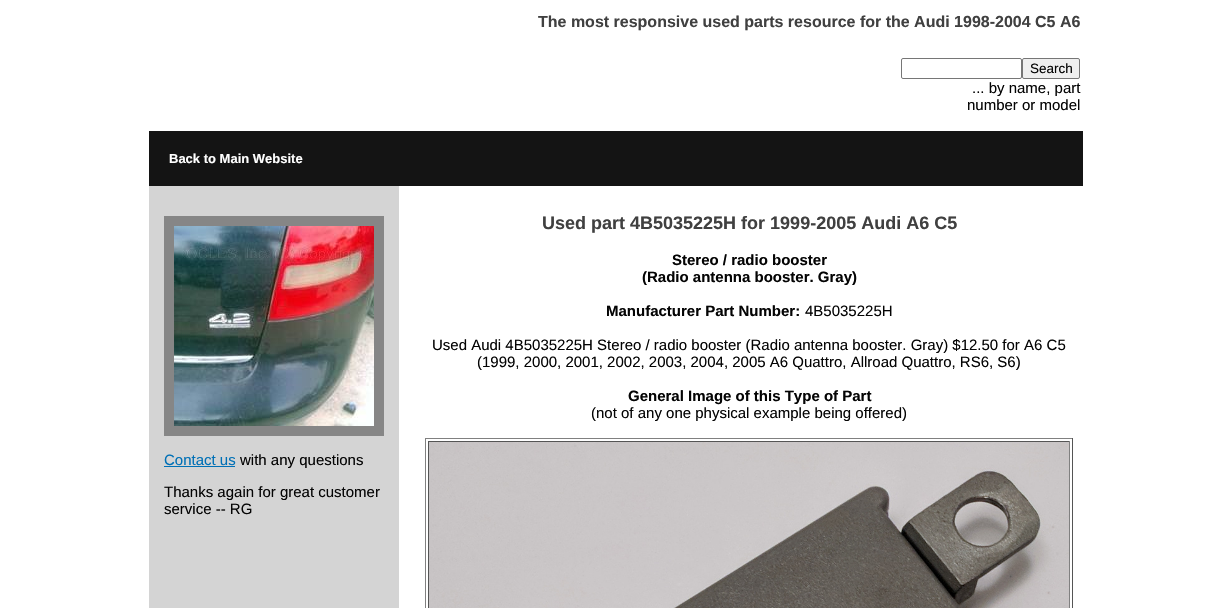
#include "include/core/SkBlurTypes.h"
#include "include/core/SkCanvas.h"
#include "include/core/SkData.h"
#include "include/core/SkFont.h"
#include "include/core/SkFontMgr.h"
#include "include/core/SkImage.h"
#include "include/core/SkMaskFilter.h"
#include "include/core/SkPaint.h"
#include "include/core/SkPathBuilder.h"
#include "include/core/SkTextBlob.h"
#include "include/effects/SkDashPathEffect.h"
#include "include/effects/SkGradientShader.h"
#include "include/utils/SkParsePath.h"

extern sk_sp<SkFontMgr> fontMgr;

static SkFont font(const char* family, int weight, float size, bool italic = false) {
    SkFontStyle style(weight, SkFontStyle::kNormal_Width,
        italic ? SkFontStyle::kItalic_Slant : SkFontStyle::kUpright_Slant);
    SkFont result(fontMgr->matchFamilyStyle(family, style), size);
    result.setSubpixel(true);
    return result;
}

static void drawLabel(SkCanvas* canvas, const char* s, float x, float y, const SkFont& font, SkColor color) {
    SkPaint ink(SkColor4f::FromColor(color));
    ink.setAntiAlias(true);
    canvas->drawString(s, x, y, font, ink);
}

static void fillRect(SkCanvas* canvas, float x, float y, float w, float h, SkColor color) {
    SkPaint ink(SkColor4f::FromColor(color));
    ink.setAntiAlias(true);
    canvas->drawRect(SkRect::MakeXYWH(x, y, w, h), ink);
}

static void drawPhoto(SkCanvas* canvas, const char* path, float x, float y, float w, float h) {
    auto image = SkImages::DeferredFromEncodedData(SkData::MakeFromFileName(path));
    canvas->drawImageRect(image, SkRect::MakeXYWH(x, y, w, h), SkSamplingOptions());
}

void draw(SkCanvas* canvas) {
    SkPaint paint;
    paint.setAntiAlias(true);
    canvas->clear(0xFFFFFFFF);
    SkFont font1 = font("Liberation Sans", 700, 16);
    drawLabel(canvas, "The most responsive used parts resource for the Audi 1998-2004 C5 A6", 538, 27, font1, 0xFF404040);
    paint.setStroke(true);
    paint.setStrokeWidth(1);
    paint.setColor(0xFF767676);
    canvas->drawRoundRect(SkRect::MakeXYWH(901.5f, 58.5f, 120, 20), 1.5f, 1.5f, paint);
    paint.setStroke(false);
    paint.setColor(0xFFEFEFEF);
    canvas->drawRoundRect(SkRect::MakeXYWH(1022.5f, 58.5f, 57, 20), 1.5f, 1.5f, paint);
    paint.setStroke(true);
    paint.setColor(0xFF767676);
    canvas->drawRoundRect(SkRect::MakeXYWH(1022.5f, 58.5f, 57, 20), 1.5f, 1.5f, paint);
    SkFont font2 = font("Liberation Sans", 400, 13.5f);
    drawLabel(canvas, "Search", 1030, 73, font2, 0xFF040404);
    SkFont font3 = font("Liberation Sans", 400, 15);
    drawLabel(canvas, "... by name, part", 972, 93, font3, 0xFF040404);
    drawLabel(canvas, "number or model", 967, 110, font3, 0xFF040404);
    fillRect(canvas, 149, 131, 934, 55, 0xFF141414);
    SkFont font4 = font("Liberation Sans", 700, 13);
    drawLabel(canvas, "Back to Main Website", 169, 163, font4, 0xFFFFFFFF);
    SkFont font5 = font("Liberation Sans", 700, 18);
    drawLabel(canvas, "Used part 4B5035225H for 1999-2005 Audi A6 C5", 542, 229, font5, 0xFF404040);
    SkFont font6 = font("Liberation Sans", 700, 15);
    drawLabel(canvas, "Stereo / radio booster", 672, 265, font6, 0xFF040404);
    drawLabel(canvas, "(Radio antenna booster. Gray)", 642, 282, font6, 0xFF040404);
    drawLabel(canvas, "Manufacturer Part Number:", 606, 316, font6, 0xFF040404);
    drawLabel(canvas, "4B5035225H", 805, 316, font3, 0xFF040404);
    drawLabel(canvas, "Used Audi 4B5035225H Stereo / radio booster (Radio antenna booster. Gray) $12.50 for A6 C5", 432, 350, font3, 0xFF040404);
    drawLabel(canvas, "(1999, 2000, 2001, 2002, 2003, 2004, 2005 A6 Quattro, Allroad Quattro, RS6, S6)", 477, 367, font3, 0xFF040404);
    drawLabel(canvas, "General Image of this Type of Part", 628, 401, font6, 0xFF040404);
    drawLabel(canvas, "(not of any one physical example being offered)", 591, 418, font3, 0xFF040404);
    fillRect(canvas, 425, 438, 648, 1, 0xFF808080);
    fillRect(canvas, 1072, 438, 1, 170, 0xFF555555);
    fillRect(canvas, 425, 438, 1, 170, 0xFF808080);
    fillRect(canvas, 428, 441, 642, 1, 0xFF555555);
    fillRect(canvas, 1069, 441, 1, 167, 0xFF808080);
    fillRect(canvas, 428, 441, 1, 167, 0xFF555555);
    drawPhoto(canvas, "assets/img1.png", 429, 442, 640, 166);
    fillRect(canvas, 149, 186, 250, 422, 0xFFD4D4D4);
    fillRect(canvas, 164, 216, 220, 220, 0xFF868686);
    drawPhoto(canvas, "assets/img2.png", 174, 226, 200, 200);
    drawLabel(canvas, "Contact us", 164, 465, font3, 0xFF0070B6);
    fillRect(canvas, 164, 466, 71, 1, 0xFF0070B6);
    drawLabel(canvas, "with any questions", 240, 465, font3, 0xFF040404);
    drawLabel(canvas, "Thanks again for great customer", 164, 497, font3, 0xFF040404);
    drawLabel(canvas, "service -- RG", 164, 514, font3, 0xFF040404);
}
